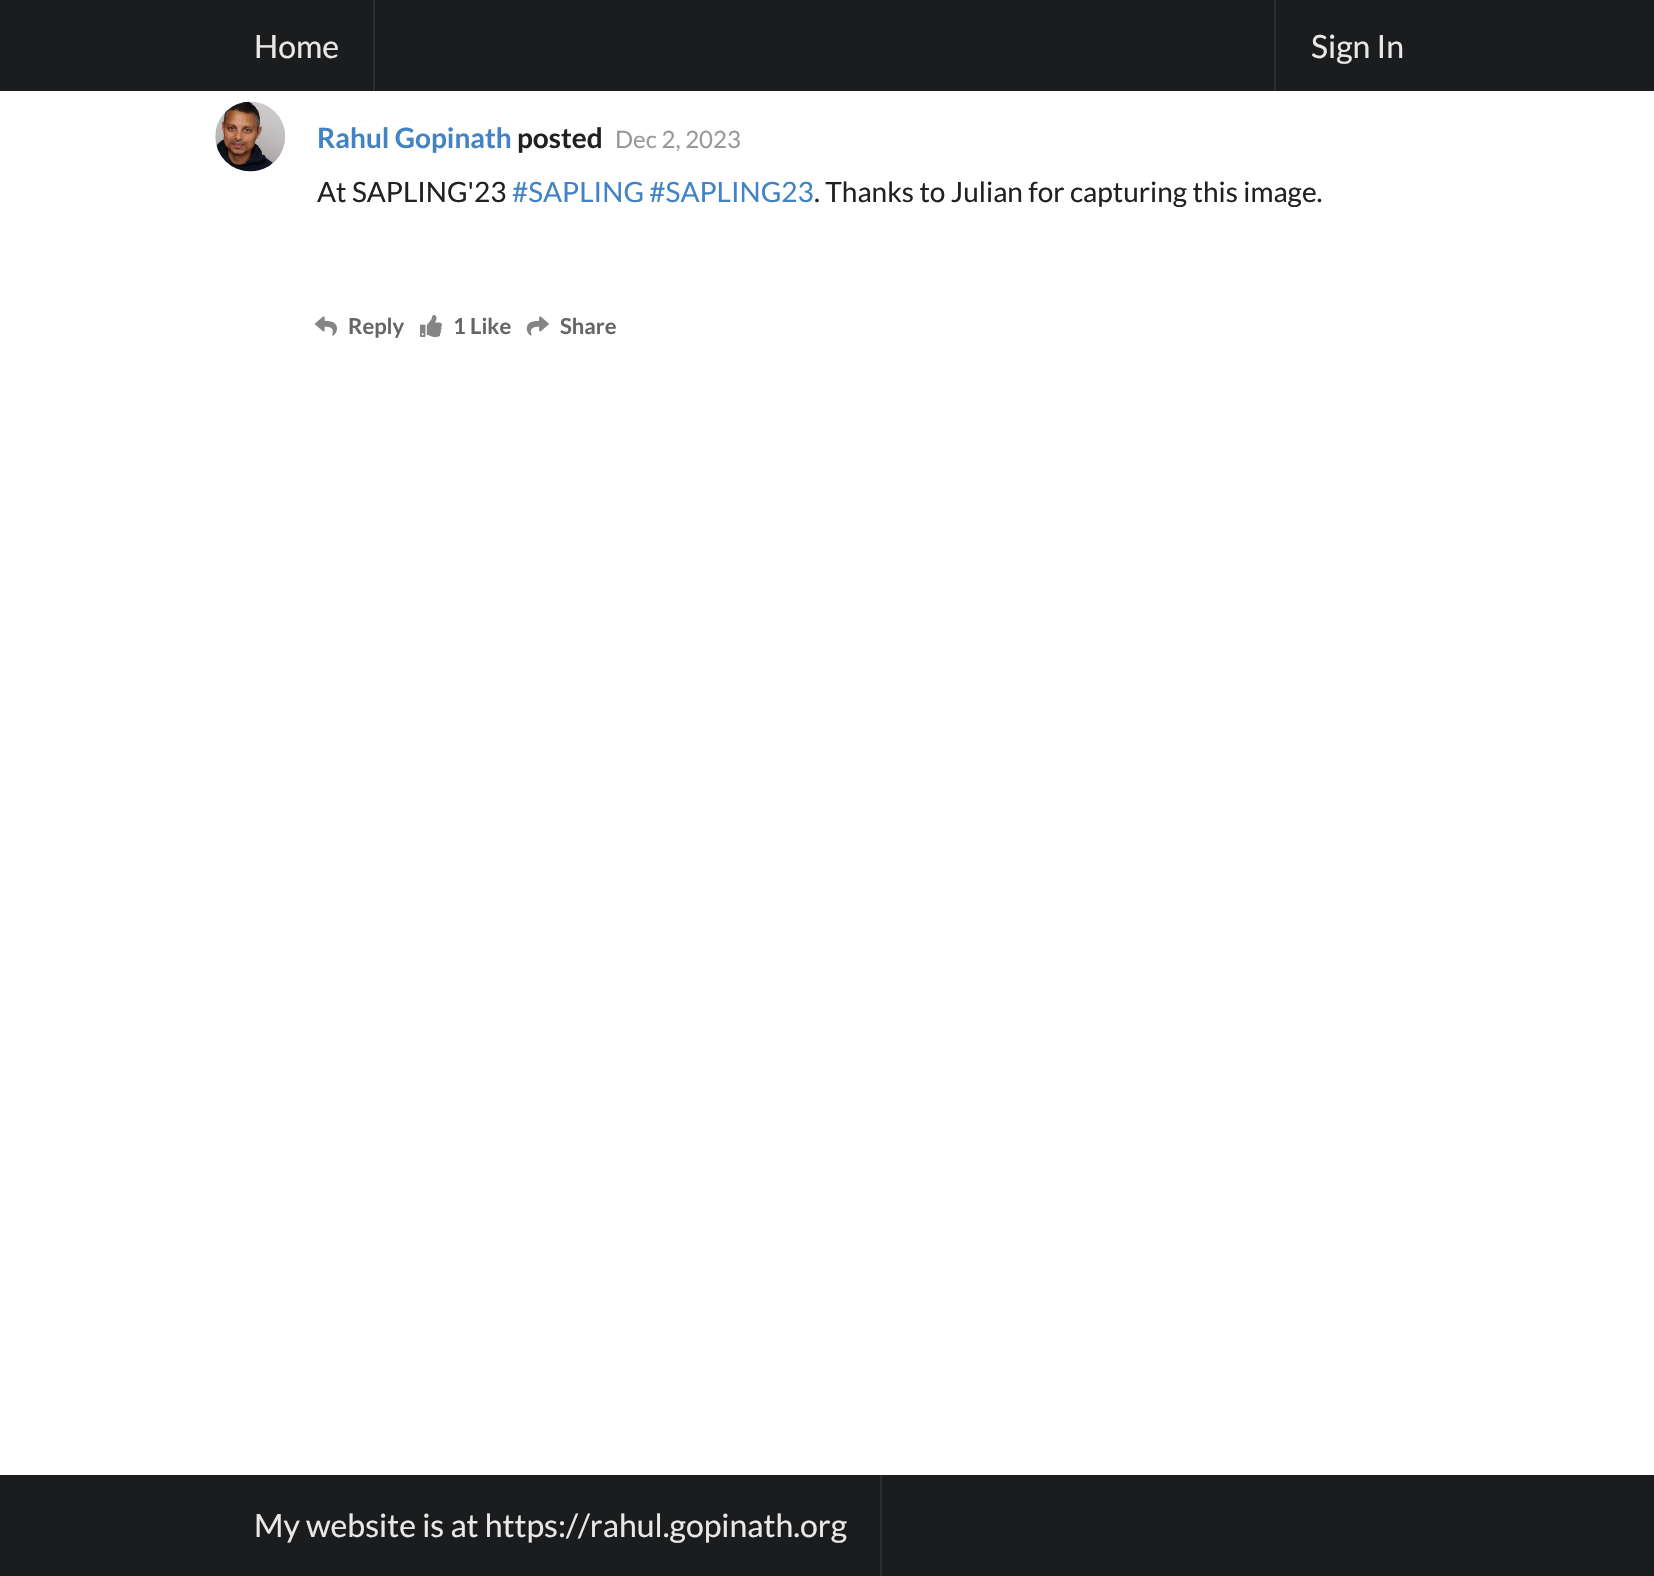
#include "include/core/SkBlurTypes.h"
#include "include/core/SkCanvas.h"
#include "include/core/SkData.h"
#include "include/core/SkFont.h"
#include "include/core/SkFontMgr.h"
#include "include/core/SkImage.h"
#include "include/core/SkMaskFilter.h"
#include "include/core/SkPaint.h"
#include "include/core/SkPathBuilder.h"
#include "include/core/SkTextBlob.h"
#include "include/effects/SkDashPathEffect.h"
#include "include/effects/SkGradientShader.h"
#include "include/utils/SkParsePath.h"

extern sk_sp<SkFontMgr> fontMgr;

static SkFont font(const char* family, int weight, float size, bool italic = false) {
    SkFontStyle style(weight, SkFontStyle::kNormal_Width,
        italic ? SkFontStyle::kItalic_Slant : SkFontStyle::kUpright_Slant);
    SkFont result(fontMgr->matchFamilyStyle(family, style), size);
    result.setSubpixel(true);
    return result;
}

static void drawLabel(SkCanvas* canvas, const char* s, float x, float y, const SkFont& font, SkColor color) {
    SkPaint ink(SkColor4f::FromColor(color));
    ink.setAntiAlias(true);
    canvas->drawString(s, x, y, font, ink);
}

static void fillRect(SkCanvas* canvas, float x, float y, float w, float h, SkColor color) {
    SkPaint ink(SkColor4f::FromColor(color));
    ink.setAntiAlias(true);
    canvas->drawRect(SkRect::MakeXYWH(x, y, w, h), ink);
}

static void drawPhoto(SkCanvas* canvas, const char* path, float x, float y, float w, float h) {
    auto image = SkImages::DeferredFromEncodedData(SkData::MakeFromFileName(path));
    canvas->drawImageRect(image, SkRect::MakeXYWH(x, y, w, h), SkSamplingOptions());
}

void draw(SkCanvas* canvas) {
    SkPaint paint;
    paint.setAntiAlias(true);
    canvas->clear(0xFFFFFFFF);
    fillRect(canvas, 0, 0, 1654, 91, 0xFF1B1C1D);
    SkFont font1 = font("Lato", 400, 32);
    drawLabel(canvas, "Home", 254, 58, font1, 0xFFE8E8E8);
    fillRect(canvas, 373, 0, 2, 91, 0xFF2D2E2F);
    fillRect(canvas, 1274, 0, 2, 91, 0xFF2D2E2F);
    drawLabel(canvas, "Sign In", 1311, 58, font1, 0xFFE8E8E8);
    drawPhoto(canvas, "assets/img1.png", 215, 101, 71, 71);
    SkFont font2 = font("Lato", 700, 28);
    drawLabel(canvas, "Rahul Gopinath", 317, 148, font2, 0xFF4183C4);
    drawLabel(canvas, "posted", 517, 148, font2, 0xFF212121);
    SkFont font3 = font("Lato", 400, 24);
    drawLabel(canvas, "Dec 2, 2023", 615, 148, font3, 0xFF999999);
    SkFont font4 = font("Lato", 400, 28);
    drawLabel(canvas, "At SAPLING'23", 317, 202, font4, 0xFF212121);
    drawLabel(canvas, "#SAPLING #SAPLING23", 512, 202, font4, 0xFF4183C4);
    drawLabel(canvas, ". Thanks to Julian for capturing this image.", 814, 202, font4, 0xFF212121);
    drawPhoto(canvas, "assets/img2.png", 315, 316, 22, 20);
    SkFont font5 = font("Lato", 700, 22);
    drawLabel(canvas, "Reply", 348, 334, font5, 0xFF666666);
    drawPhoto(canvas, "assets/img3.png", 420, 315, 22, 22);
    drawLabel(canvas, "1 Like", 453, 334, font5, 0xFF666666);
    drawPhoto(canvas, "assets/img4.png", 526, 316, 23, 20);
    drawLabel(canvas, "Share", 560, 334, font5, 0xFF666666);
    fillRect(canvas, 0, 1475, 1654, 101, 0xFF1B1C1D);
    drawLabel(canvas, "My website is at https://rahul.gopinath.org", 254, 1537, font1, 0xFFE8E8E8);
    fillRect(canvas, 880, 1475, 2, 101, 0xFF2D2E2F);
}
